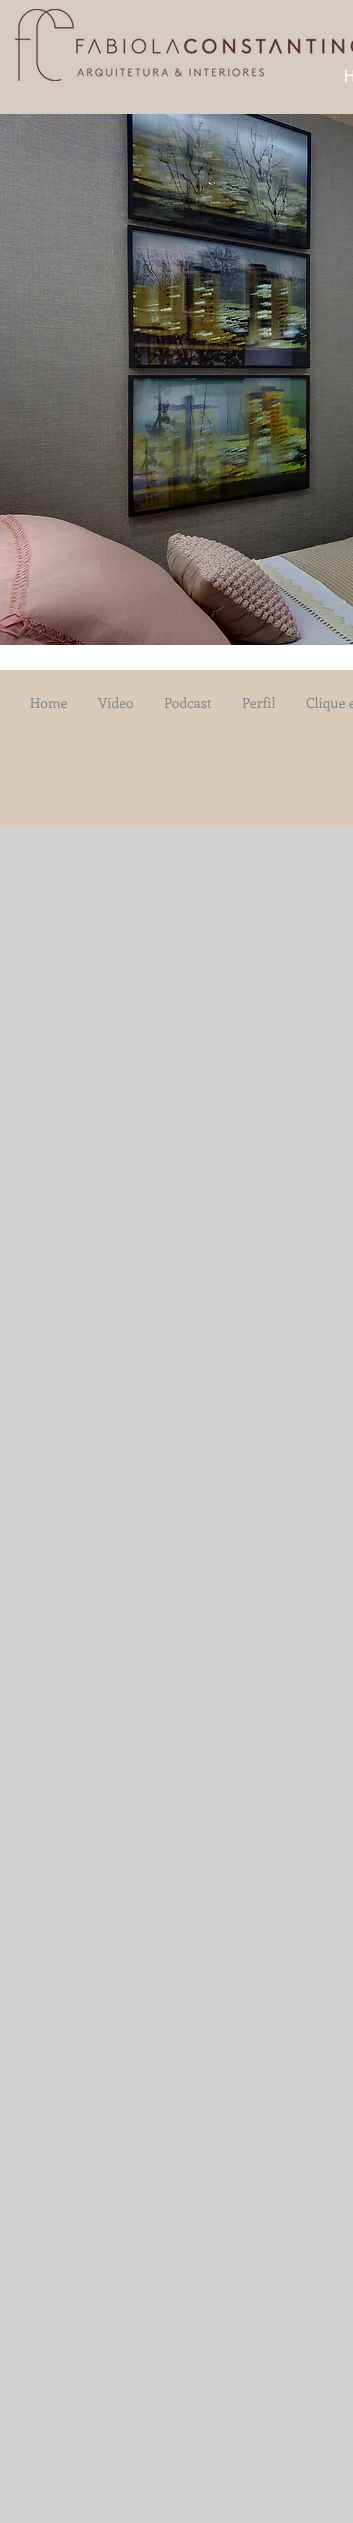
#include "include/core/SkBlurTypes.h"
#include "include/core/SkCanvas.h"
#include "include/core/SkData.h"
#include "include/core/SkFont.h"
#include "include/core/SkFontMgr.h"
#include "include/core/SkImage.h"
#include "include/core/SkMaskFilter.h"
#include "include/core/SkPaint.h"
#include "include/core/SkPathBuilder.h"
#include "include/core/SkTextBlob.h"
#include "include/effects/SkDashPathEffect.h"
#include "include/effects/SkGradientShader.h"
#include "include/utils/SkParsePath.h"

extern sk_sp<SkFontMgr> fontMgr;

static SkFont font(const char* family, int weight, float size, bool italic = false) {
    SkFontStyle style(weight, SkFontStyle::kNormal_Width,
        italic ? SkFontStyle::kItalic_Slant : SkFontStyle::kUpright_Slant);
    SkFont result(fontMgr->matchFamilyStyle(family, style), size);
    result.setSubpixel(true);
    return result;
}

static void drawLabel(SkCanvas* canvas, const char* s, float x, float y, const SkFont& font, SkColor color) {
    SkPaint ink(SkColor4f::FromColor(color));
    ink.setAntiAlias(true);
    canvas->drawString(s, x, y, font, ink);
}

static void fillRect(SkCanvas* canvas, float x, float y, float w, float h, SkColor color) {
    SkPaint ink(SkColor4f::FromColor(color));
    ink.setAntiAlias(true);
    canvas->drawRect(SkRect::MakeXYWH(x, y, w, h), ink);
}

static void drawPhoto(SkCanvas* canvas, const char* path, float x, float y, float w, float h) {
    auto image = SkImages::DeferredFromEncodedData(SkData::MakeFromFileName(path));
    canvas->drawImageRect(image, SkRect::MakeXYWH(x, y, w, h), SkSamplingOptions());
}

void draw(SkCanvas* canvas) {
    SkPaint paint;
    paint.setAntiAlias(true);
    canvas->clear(0xFFD1D1D1);
    fillRect(canvas, 0, 0, 353, 114, 0xFFD7CCC1);
    SkFont font1 = font("futura", 400, 16);
    drawLabel(canvas, "H", 344, 82, font1, 0xFFFFFFFF);
    drawPhoto(canvas, "assets/img1.png", 15, 9, 338, 72);
    drawPhoto(canvas, "assets/img2.png", 0, 114, 353, 531);
    fillRect(canvas, 0, 645, 353, 25, 0xFFFFFFFF);
    fillRect(canvas, 0, 670, 353, 157, 0xFFD9CABA);
    SkFont font2 = font("Enriqueta", 400, 14);
    drawLabel(canvas, "Home", 30, 708, font2, 0xFF8B8B8B);
    drawLabel(canvas, "Vídeo", 98, 708, font2, 0xFF8B8B8B);
    drawLabel(canvas, "Podcast", 164, 708, font2, 0xFF8B8B8B);
    drawLabel(canvas, "Perfil", 242, 708, font2, 0xFF8B8B8B);
    drawLabel(canvas, "Clique e", 306, 708, font2, 0xFF8B8B8B);
}
